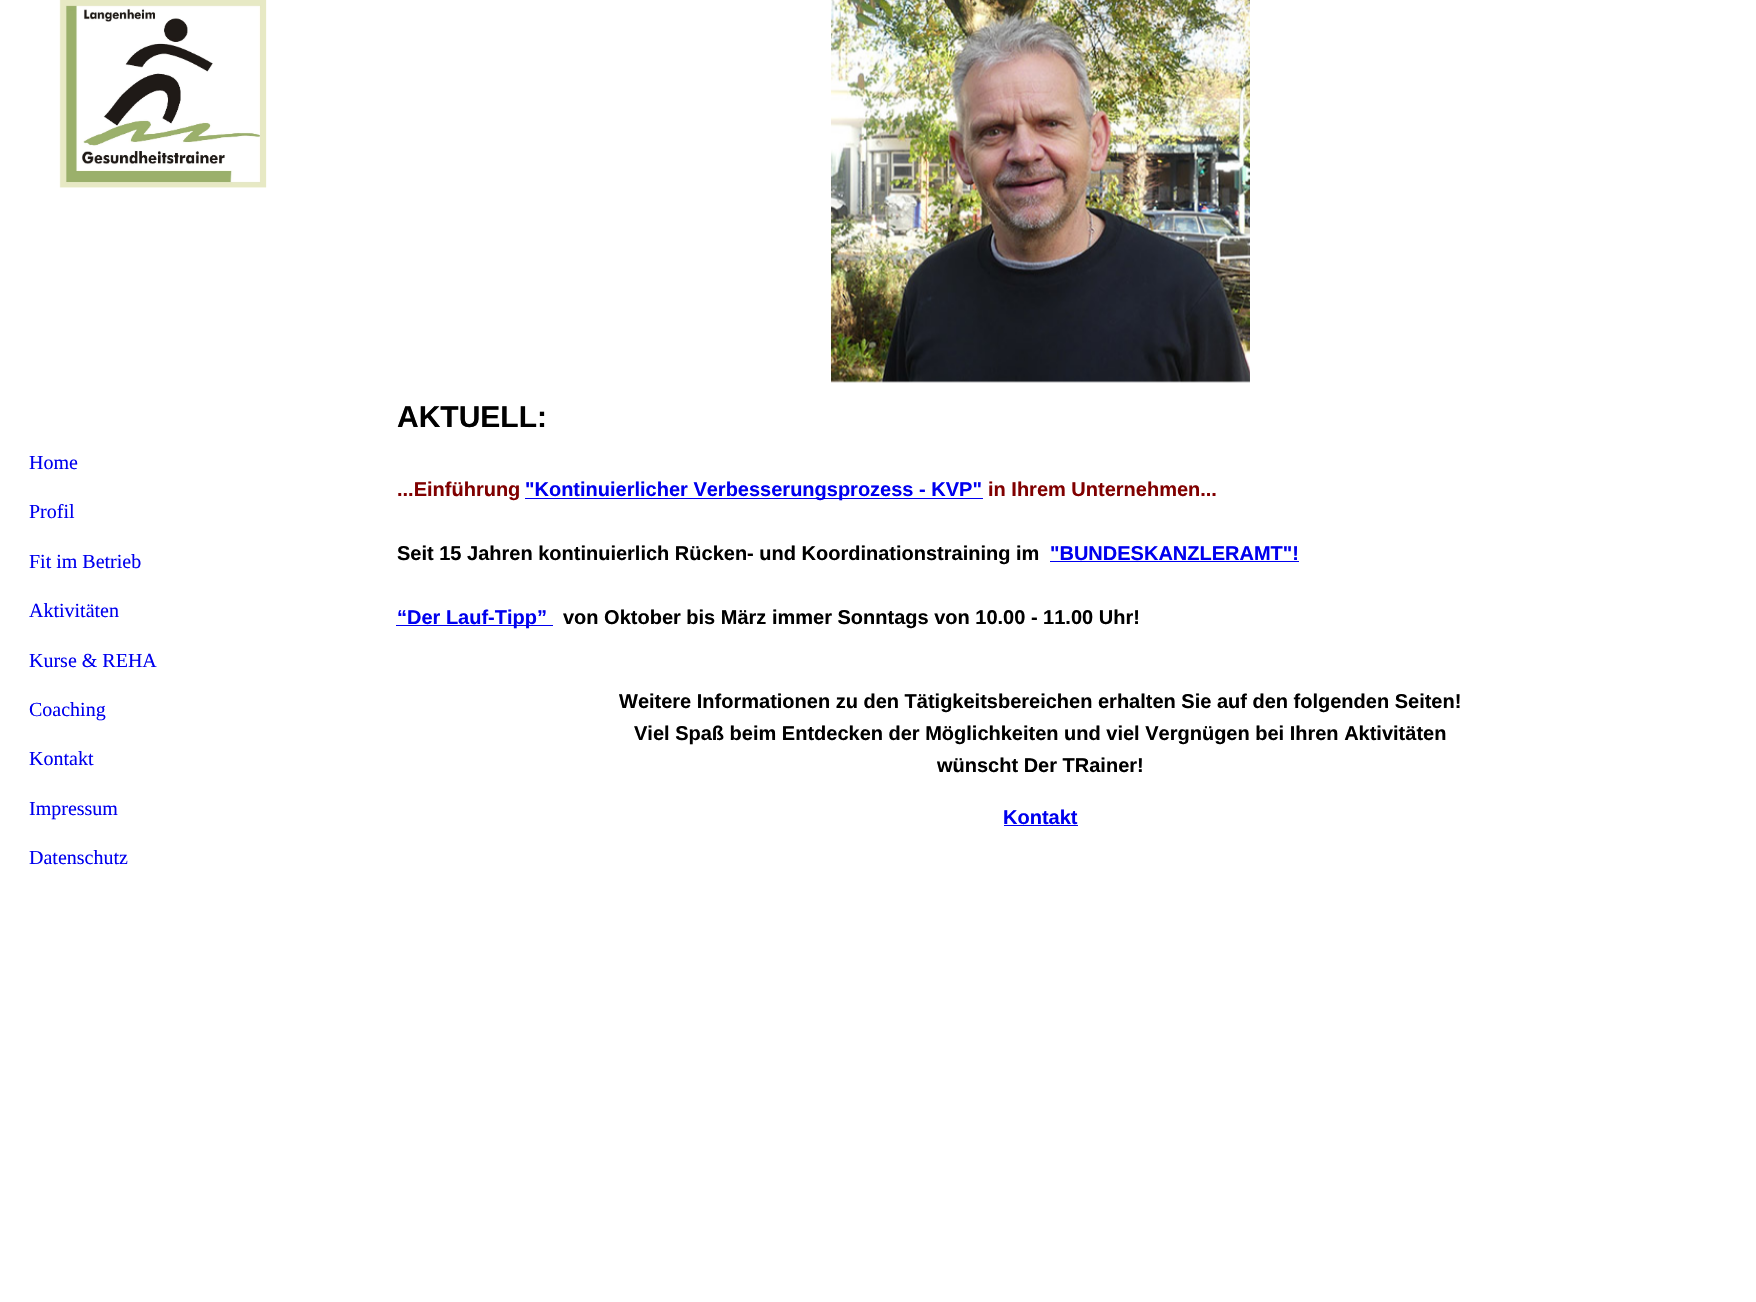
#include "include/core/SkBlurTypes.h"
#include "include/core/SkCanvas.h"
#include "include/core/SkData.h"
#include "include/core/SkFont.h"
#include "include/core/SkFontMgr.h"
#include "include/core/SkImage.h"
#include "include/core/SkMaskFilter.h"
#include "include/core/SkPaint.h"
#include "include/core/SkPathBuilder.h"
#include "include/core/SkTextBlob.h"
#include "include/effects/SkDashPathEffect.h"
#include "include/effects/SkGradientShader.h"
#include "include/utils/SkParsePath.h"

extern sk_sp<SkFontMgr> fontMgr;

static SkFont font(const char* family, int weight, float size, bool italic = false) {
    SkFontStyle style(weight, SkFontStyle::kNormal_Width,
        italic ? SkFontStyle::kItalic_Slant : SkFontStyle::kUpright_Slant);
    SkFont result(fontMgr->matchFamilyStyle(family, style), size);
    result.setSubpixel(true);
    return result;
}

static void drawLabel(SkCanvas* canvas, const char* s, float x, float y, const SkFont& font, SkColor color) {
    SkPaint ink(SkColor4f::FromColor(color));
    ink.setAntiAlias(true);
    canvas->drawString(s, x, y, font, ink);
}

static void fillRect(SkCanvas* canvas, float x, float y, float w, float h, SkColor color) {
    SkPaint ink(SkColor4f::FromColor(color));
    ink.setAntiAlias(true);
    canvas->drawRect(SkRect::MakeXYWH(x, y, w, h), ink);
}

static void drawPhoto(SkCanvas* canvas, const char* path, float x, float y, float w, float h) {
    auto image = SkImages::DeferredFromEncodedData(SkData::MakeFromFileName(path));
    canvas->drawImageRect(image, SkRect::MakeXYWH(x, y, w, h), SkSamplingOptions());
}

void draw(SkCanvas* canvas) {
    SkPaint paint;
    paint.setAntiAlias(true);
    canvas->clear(0xFFFFFFFF);
    drawPhoto(canvas, "assets/img1.png", 59, 0, 208, 188);
    SkFont font1 = font("Liberation Serif", 400, 20);
    drawLabel(canvas, "Home", 29, 469, font1, 0xFF0000EE);
    drawLabel(canvas, "Profil", 29, 518, font1, 0xFF0000EE);
    drawLabel(canvas, "Fit im Betrieb", 29, 568, font1, 0xFF0000EE);
    drawLabel(canvas, "Aktivitäten", 29, 617, font1, 0xFF0000EE);
    drawLabel(canvas, "Kurse & REHA", 29, 667, font1, 0xFF0000EE);
    drawLabel(canvas, "Coaching", 29, 716, font1, 0xFF0000EE);
    drawLabel(canvas, "Kontakt", 29, 765, font1, 0xFF0000EE);
    drawLabel(canvas, "Impressum", 29, 815, font1, 0xFF0000EE);
    drawLabel(canvas, "Datenschutz", 29, 864, font1, 0xFF0000EE);
    drawPhoto(canvas, "assets/img2.png", 831, 0, 419, 383);
    SkFont font2 = font("Liberation Sans", 700, 30);
    drawLabel(canvas, "AKTUELL:", 397, 427, font2, 0xFF000000);
    SkFont font3 = font("Liberation Sans", 700, 20);
    drawLabel(canvas, "...Einführung", 397, 496, font3, 0xFF800000);
    fillRect(canvas, 525, 498, 458, 1, 0xFF0000EE);
    drawLabel(canvas, "\"Kontinuierlicher Verbesserungsprozess - KVP\"", 525, 496, font3, 0xFF0000EE);
    drawLabel(canvas, "in Ihrem Unternehmen...", 988, 496, font3, 0xFF800000);
    drawLabel(canvas, "Seit 15 Jahren kontinuierlich Rücken- und Koordinationstraining im", 397, 560, font3, 0xFF000000);
    drawLabel(canvas, "\"BUNDESKANZLERAMT\"!", 1050, 560, font3, 0xFF0000EE);
    fillRect(canvas, 1050, 561, 249, 1, 0xFF0000EE);
    fillRect(canvas, 396, 625, 157, 1, 0xFF0000EE);
    drawLabel(canvas, "“Der Lauf-Tipp”", 397, 624, font3, 0xFF0000EE);
    drawLabel(canvas, "von Oktober bis März immer Sonntags von 10.00 - 11.00 Uhr!", 563, 624, font3, 0xFF000000);
    drawLabel(canvas, "Weitere Informationen zu den Tätigkeitsbereichen erhalten Sie auf den folgenden Seiten!", 619, 708, font3, 0xFF000000);
    drawLabel(canvas, "Viel Spaß beim Entdecken der Möglichkeiten und viel Vergnügen bei Ihren Aktivitäten", 634, 740, font3, 0xFF000000);
    drawLabel(canvas, "wünscht Der TRainer!", 937, 772, font3, 0xFF000000);
    drawLabel(canvas, "Kontakt", 1003, 824, font3, 0xFF0000EE);
    fillRect(canvas, 1004, 825, 74, 1, 0xFF0000EE);
}
